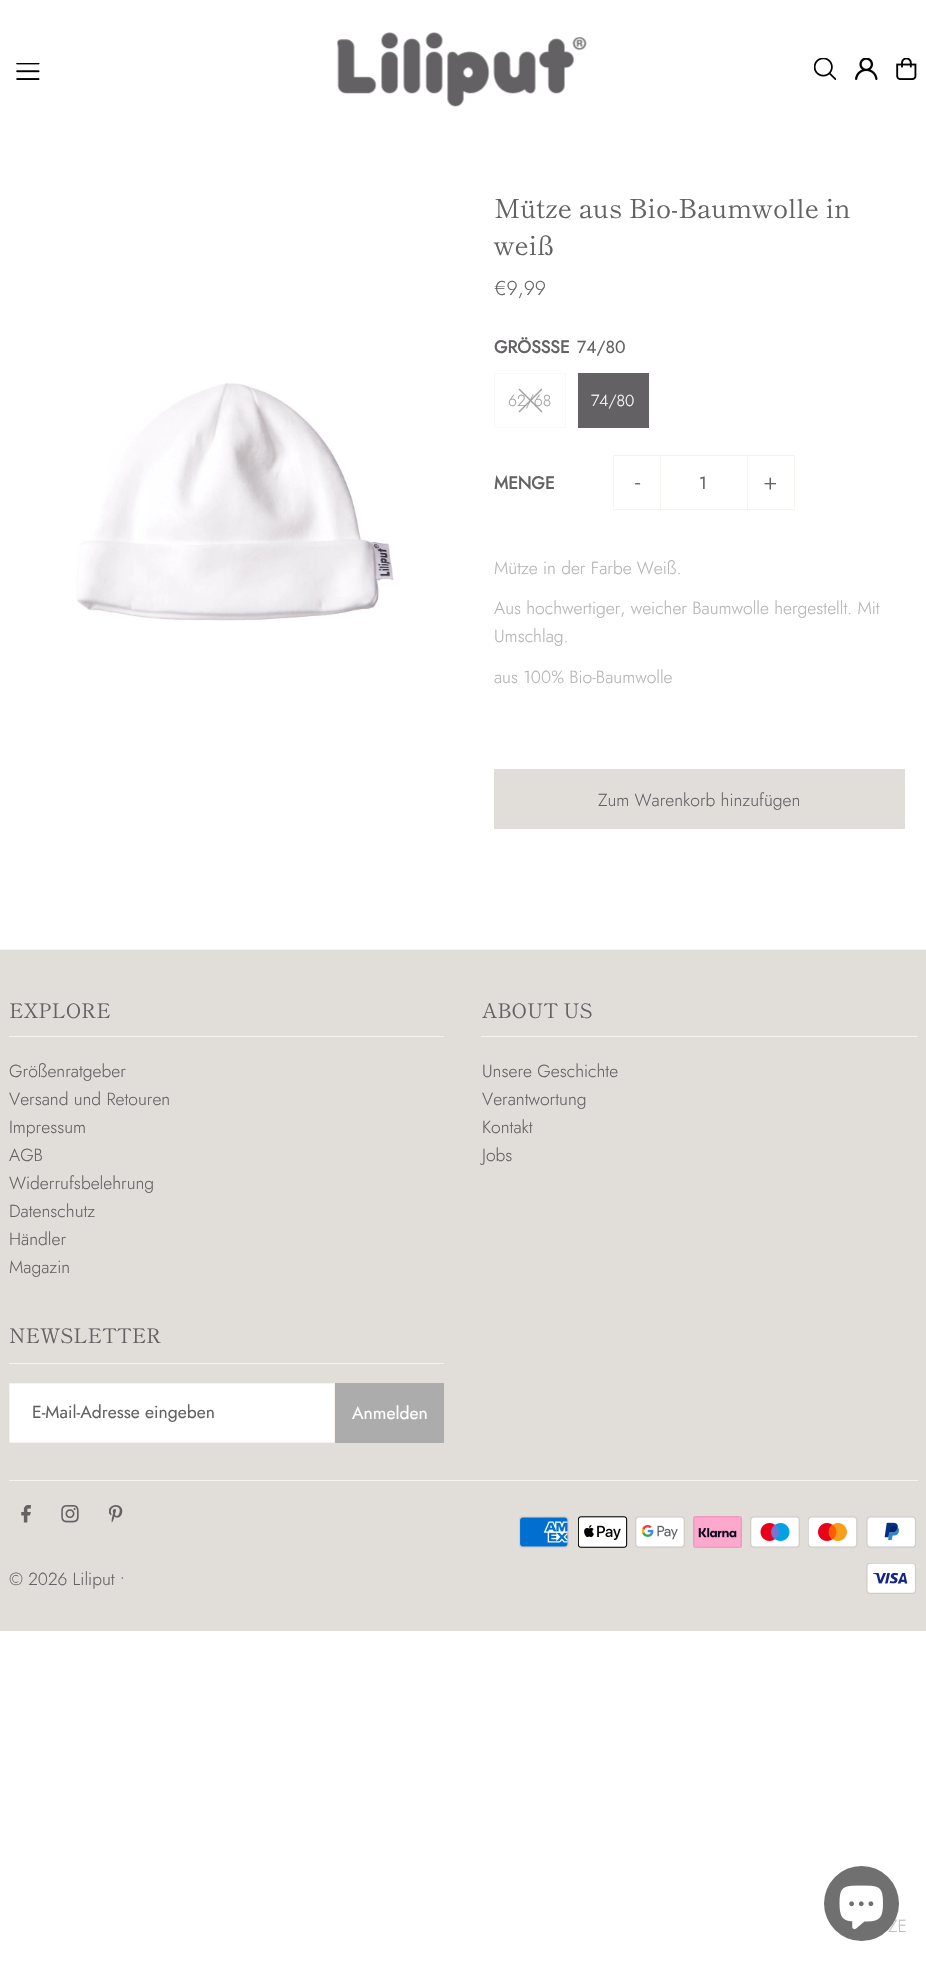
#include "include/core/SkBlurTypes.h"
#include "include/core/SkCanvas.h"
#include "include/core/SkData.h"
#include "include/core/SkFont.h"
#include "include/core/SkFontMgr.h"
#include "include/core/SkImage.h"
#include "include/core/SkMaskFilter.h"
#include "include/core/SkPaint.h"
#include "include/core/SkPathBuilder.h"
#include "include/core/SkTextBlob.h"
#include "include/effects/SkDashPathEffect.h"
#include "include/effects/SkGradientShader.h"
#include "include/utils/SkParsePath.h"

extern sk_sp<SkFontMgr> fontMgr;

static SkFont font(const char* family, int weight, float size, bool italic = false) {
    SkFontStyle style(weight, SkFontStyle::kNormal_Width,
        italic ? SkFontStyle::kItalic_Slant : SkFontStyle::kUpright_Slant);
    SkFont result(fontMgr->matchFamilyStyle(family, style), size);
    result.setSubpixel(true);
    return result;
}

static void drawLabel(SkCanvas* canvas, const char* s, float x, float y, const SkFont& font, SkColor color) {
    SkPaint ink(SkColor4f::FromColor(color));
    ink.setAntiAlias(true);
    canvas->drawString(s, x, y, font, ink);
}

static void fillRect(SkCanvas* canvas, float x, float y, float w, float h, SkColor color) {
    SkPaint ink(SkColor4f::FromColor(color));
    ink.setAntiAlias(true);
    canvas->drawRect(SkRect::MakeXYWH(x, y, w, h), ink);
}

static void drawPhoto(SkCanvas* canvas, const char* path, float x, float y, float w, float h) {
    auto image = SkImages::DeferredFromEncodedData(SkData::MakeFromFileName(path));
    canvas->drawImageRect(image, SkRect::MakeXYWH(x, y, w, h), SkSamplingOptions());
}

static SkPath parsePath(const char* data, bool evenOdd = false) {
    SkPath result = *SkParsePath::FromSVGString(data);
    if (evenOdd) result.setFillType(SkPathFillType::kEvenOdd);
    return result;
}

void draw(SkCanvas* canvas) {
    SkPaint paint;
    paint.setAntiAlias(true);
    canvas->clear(0xFFFFFFFF);
    drawPhoto(canvas, "assets/img1.png", 16, 63, 24, 17);
    drawPhoto(canvas, "assets/img2.png", 337, 32, 250, 75);
    drawPhoto(canvas, "assets/img3.png", 814, 58, 22, 22);
    drawPhoto(canvas, "assets/img4.png", 855, 58, 23, 22);
    drawPhoto(canvas, "assets/img5.png", 896, 58, 21, 22);
    drawPhoto(canvas, "assets/img6.png", 76, 383, 318, 238);
    SkFont font1 = font("Shippori Mincho", 400, 26.25f);
    drawLabel(canvas, "Mütze aus Bio-Baumwolle in", 494, 218, font1, 0xFF636163);
    drawLabel(canvas, "weiß", 494, 255, font1, 0xFF636163);
    SkFont font2 = font("Jost", 300, 20);
    drawLabel(canvas, "€9,99", 494, 295, font2, 0xFF636163);
    SkFont font3 = font("Jost", 700, 17.5f);
    drawLabel(canvas, "GRÖSSSE", 494, 353, font3, 0xFF636163);
    SkFont font4 = font("Jost", 400, 17.5f);
    drawLabel(canvas, "74/80", 577, 353, font4, 0xFF636163);
    paint.setStroke(true);
    paint.setStrokeWidth(1);
    paint.setColor(0xFFFAF7F5);
    canvas->drawRect(SkRect::MakeXYWH(494.5f, 373.5f, 71, 54), paint);
    paint.setStroke(false);
    paint.setColor(0xFFA1A0A1);
    canvas->drawPath(parsePath("M541.5 388.5L542.5 389.5L519.5 412.5L518.5 411.5Z"), paint);
    canvas->drawPath(parsePath("M542.5 411.5L541.5 412.5L518.5 389.5L519.5 388.5Z"), paint);
    SkFont font5 = font("Jost", 300, 16);
    drawLabel(canvas, "62/68", 508, 406, font5, 0xFFA1A0A1);
    fillRect(canvas, 578, 373, 71, 55, 0xFF636163);
    drawLabel(canvas, "74/80", 591, 406, font5, 0xFFFFFFFF);
    drawLabel(canvas, "MENGE", 494, 489, font3, 0xFF636163);
    fillRect(canvas, 613, 455, 47, 1, 0xFFF7F2EE);
    fillRect(canvas, 613, 509, 47, 1, 0xFFF7F2EE);
    fillRect(canvas, 613, 455, 1, 55, 0xFFF7F2EE);
    SkFont font6 = font("Jost", 300, 25);
    drawLabel(canvas, "-", 635, 490, font6, 0xFF636163);
    paint.setStroke(true);
    paint.setColor(0xFFF7F2EE);
    canvas->drawRect(SkRect::MakeXYWH(660.5f, 455.5f, 87, 54), paint);
    drawLabel(canvas, "1", 699, 489, font4, 0xFF636163);
    fillRect(canvas, 748, 455, 47, 1, 0xFFF7F2EE);
    fillRect(canvas, 794, 455, 1, 55, 0xFFF7F2EE);
    fillRect(canvas, 748, 509, 47, 1, 0xFFF7F2EE);
    drawLabel(canvas, "+", 763, 490, font6, 0xFF636163);
    SkFont font7 = font("Jost", 300, 17.5f);
    drawLabel(canvas, "Mütze in der Farbe Weiß.", 494, 574, font7, 0xFFB3B3B3);
    drawLabel(canvas, "Aus hochwertiger, weicher Baumwolle hergestellt. Mit", 494, 614, font7, 0xFFB3B3B3);
    drawLabel(canvas, "Umschlag.", 494, 642, font7, 0xFFB3B3B3);
    drawLabel(canvas, "aus 100% Bio-Baumwolle", 494, 683, font7, 0xFFB3B3B3);
    fillRect(canvas, 494, 769, 411, 60, 0xFFE1DDD9);
    drawLabel(canvas, "Zum Warenkorb hinzufügen", 598, 806, font7, 0xFF636163);
    fillRect(canvas, 0, 950, 926, 681, 0xFFE1DDD9);
    fillRect(canvas, 0, 949, 926, 1, 0xFFF7F2EE);
    fillRect(canvas, 9, 1036, 435, 1, 0xFFF7F2EE);
    SkFont font8 = font("Shippori Mincho", 400, 20);
    drawLabel(canvas, "EXPLORE", 9, 1018, font8, 0xFF636163);
    drawLabel(canvas, "Größenratgeber", 9, 1077, font7, 0xFF636163);
    drawLabel(canvas, "Versand und Retouren", 9, 1105, font7, 0xFF636163);
    drawLabel(canvas, "Impressum", 9, 1133, font7, 0xFF636163);
    drawLabel(canvas, "AGB", 9, 1161, font7, 0xFF636163);
    drawLabel(canvas, "Widerrufsbelehrung", 9, 1189, font7, 0xFF636163);
    drawLabel(canvas, "Datenschutz", 9, 1217, font7, 0xFF636163);
    drawLabel(canvas, "Händler", 9, 1245, font7, 0xFF636163);
    drawLabel(canvas, "Magazin", 9, 1273, font7, 0xFF636163);
    fillRect(canvas, 481, 1036, 437, 1, 0xFFF7F2EE);
    drawLabel(canvas, "ABOUT US", 482, 1018, font8, 0xFF636163);
    drawLabel(canvas, "Unsere Geschichte", 482, 1077, font7, 0xFF636163);
    drawLabel(canvas, "Verantwortung", 482, 1105, font7, 0xFF636163);
    drawLabel(canvas, "Kontakt", 482, 1133, font7, 0xFF636163);
    drawLabel(canvas, "Jobs", 482, 1161, font7, 0xFF636163);
    fillRect(canvas, 9, 1363, 435, 1, 0xFFF7F2EE);
    drawLabel(canvas, "NEWSLETTER", 9, 1343, font8, 0xFF636163);
    paint.setStroke(false);
    paint.setColor(0xFFFFFFFF);
    canvas->drawRect(SkRect::MakeXYWH(9.5f, 1383.5f, 325, 59), paint);
    paint.setStroke(true);
    paint.setColor(0xFFF7F2EE);
    canvas->drawRect(SkRect::MakeXYWH(9.5f, 1383.5f, 325, 59), paint);
    drawLabel(canvas, "E-Mail-Adresse eingeben", 32, 1418, font4, 0xFF636163);
    fillRect(canvas, 335, 1383, 109, 60, 0xFFACACAC);
    drawLabel(canvas, "Anmelden", 352, 1419, font4, 0xFFFFFFFF);
    fillRect(canvas, 9, 1480, 909, 1, 0xFFF7F2EE);
    drawPhoto(canvas, "assets/img7.png", 21, 1505, 10, 18);
    drawPhoto(canvas, "assets/img8.png", 61, 1505, 18, 18);
    drawPhoto(canvas, "assets/img9.png", 109, 1505, 14, 18);
    drawLabel(canvas, "© 2026 Liliput •", 9, 1585, font7, 0xFF636163);
    drawPhoto(canvas, "assets/img10.png", 519, 1516, 50, 32);
    drawPhoto(canvas, "assets/img11.png", 578, 1516, 50, 32);
    drawPhoto(canvas, "assets/img12.png", 635, 1516, 50, 32);
    drawPhoto(canvas, "assets/img13.png", 693, 1516, 49, 32);
    drawPhoto(canvas, "assets/img14.png", 750, 1516, 50, 32);
    drawPhoto(canvas, "assets/img15.png", 808, 1516, 50, 32);
    drawPhoto(canvas, "assets/img16.png", 866, 1516, 50, 32);
    drawPhoto(canvas, "assets/img17.png", 866, 1563, 50, 31);
    drawLabel(canvas, "ZE", 888, 1932, font7, 0xFFC1C0C1);
    paint.setStroke(false);
    paint.setColor(0xFF707070);
    canvas->drawCircle(861.5f, 1903.5f, 37.5f, paint);
    drawPhoto(canvas, "assets/img18.png", 839, 1885, 44, 45);
}
